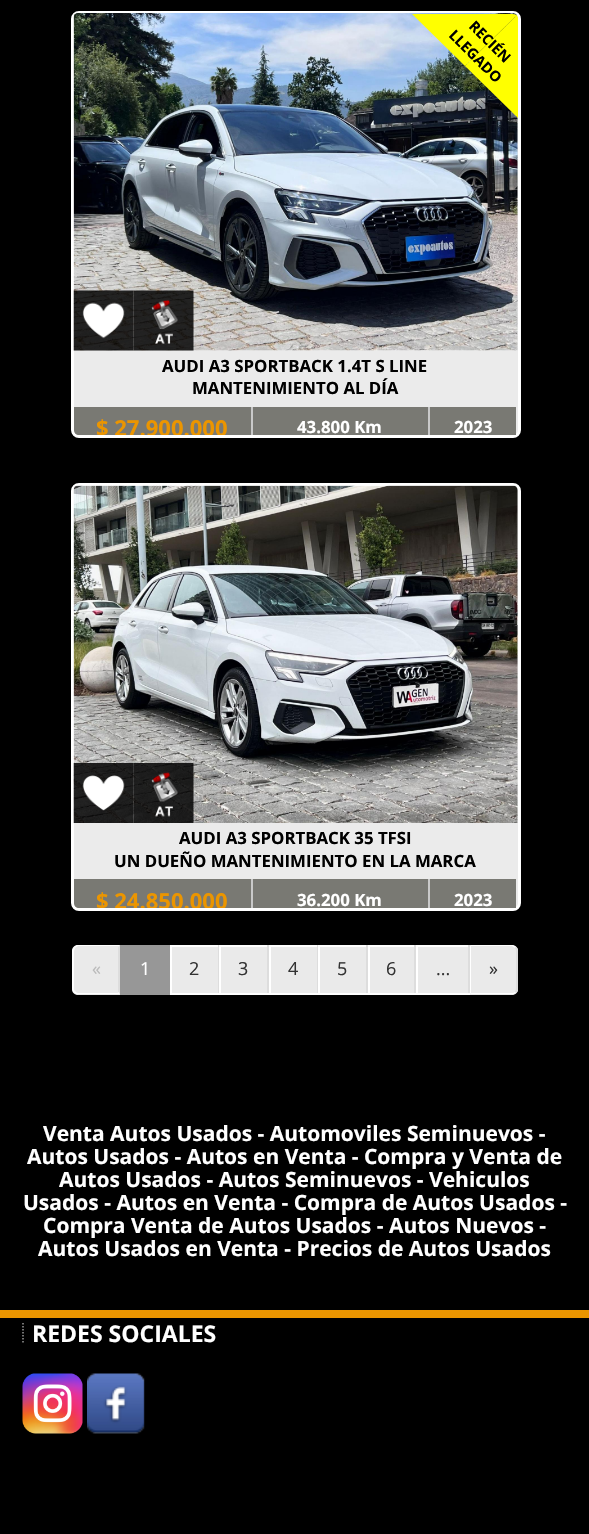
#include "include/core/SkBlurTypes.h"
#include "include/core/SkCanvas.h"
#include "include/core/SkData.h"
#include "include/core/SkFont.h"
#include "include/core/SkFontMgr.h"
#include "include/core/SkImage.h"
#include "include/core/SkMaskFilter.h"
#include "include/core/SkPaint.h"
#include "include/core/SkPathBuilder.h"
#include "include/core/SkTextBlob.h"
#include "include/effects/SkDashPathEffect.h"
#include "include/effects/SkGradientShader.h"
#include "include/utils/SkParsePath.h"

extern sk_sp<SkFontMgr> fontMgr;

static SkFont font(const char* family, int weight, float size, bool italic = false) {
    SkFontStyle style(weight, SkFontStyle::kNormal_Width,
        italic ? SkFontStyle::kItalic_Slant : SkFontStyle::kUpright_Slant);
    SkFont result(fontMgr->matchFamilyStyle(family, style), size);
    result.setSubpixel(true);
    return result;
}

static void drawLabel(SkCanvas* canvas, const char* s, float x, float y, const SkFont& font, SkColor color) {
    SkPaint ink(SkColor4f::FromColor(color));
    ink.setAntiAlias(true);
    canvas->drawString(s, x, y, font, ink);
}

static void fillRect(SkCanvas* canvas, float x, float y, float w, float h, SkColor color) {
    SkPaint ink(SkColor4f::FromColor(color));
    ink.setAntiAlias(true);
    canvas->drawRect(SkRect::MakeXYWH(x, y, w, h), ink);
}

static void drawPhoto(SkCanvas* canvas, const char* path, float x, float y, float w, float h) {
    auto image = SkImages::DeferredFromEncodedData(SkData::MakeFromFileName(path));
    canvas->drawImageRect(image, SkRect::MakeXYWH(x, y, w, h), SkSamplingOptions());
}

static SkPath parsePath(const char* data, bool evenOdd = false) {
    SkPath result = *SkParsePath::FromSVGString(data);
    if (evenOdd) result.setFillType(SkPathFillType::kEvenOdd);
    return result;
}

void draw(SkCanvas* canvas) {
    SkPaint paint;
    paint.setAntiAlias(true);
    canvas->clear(0xFF000000);
    paint.setColor(0xFFEBEBEB);
    canvas->drawRoundRect(SkRect::MakeXYWH(72.5f, 12.5f, 447, 424), 6.5f, 6.5f, paint);
    paint.setStroke(true);
    paint.setStrokeWidth(3);
    paint.setColor(0xFFFFFFFF);
    canvas->drawRoundRect(SkRect::MakeXYWH(72.5f, 12.5f, 447, 424), 6.5f, 6.5f, paint);
    drawPhoto(canvas, "assets/img3.png", 73, 13, 445, 338);
    paint.setStroke(false);
    paint.setColor(0xFFFFFF00);
    canvas->drawPath(parsePath("M412 14L465 66L517 15C516 15 514 14 513 14Z"), paint);
    canvas->drawPath(parsePath("M518 118V18L517 15L465 66Z"), paint);
    SkFont font1 = font("Open Sans", 700, 14.5f);
    canvas->save();
    canvas->rotate(45, 468, 27);
    drawLabel(canvas, "RECIÉN", 468, 27, font1, 0xFF000000);
    canvas->restore();
    canvas->save();
    canvas->rotate(45, 448, 36);
    drawLabel(canvas, "LLEGADO", 448, 36, font1, 0xFF000000);
    canvas->restore();
    drawPhoto(canvas, "assets/img1.png", 73, 290, 61, 61);
    drawPhoto(canvas, "assets/img2.png", 133, 290, 61, 61);
    SkFont font2 = font("Open Sans", 700, 16.8f);
    drawLabel(canvas, "AUDI A3 SPORTBACK 1.4T S LINE", 162, 372, font2, 0xFF000000);
    drawLabel(canvas, "MANTENIMIENTO AL DÍA", 192, 394, font2, 0xFF000000);
    paint.setColor(0xFF797973);
    canvas->drawPath(parsePath("M74 407H251V435H79C76 435 74 433 74 430Z"), paint);
    canvas->save();
    canvas->clipPath(parsePath("M79 14H513C516 14 518 16 518 19V430C518 433 516 435 513 435H79C76 435 74 433 74 430V19C74 16 76 14 79 14Z"), true);
    SkFont font3 = font("Open Sans", 700, 22);
    drawLabel(canvas, "$ 27.900.000", 96, 436, font3, 0xFFEB9500);
    canvas->restore();
    fillRect(canvas, 253, 407, 175, 28, 0xFF797973);
    fillRect(canvas, 251, 407, 2, 28, 0xFFC9C9C9);
    drawLabel(canvas, "43.800 Km", 297, 433, font2, 0xFFFFFFFF);
    fillRect(canvas, 430, 407, 86, 28, 0xFF797973);
    fillRect(canvas, 428, 407, 2, 28, 0xFFC9C9C9);
    drawLabel(canvas, "2023", 454, 433, font2, 0xFFFFFFFF);
    paint.setColor(0xFFEBEBEB);
    canvas->drawRoundRect(SkRect::MakeXYWH(72.5f, 484.5f, 447, 425), 6.5f, 6.5f, paint);
    paint.setStroke(true);
    paint.setColor(0xFFFFFFFF);
    canvas->drawRoundRect(SkRect::MakeXYWH(72.5f, 484.5f, 447, 425), 6.5f, 6.5f, paint);
    drawPhoto(canvas, "assets/img6.png", 73, 485, 445, 338);
    drawPhoto(canvas, "assets/img4.png", 73, 763, 61, 60);
    drawPhoto(canvas, "assets/img5.png", 133, 763, 61, 60);
    drawLabel(canvas, "AUDI A3 SPORTBACK 35 TFSI", 179, 844, font2, 0xFF000000);
    drawLabel(canvas, "UN DUEÑO MANTENIMIENTO EN LA MARCA", 114, 867, font2, 0xFF000000);
    paint.setStroke(false);
    paint.setColor(0xFF797973);
    canvas->drawPath(parsePath("M74 879H251V908H79C76 908 74 906 74 903Z"), paint);
    canvas->save();
    canvas->clipPath(parsePath("M79 486H513C516 486 518 488 518 491V903C518 906 516 908 513 908H79C76 908 74 906 74 903V491C74 488 76 486 79 486Z"), true);
    drawLabel(canvas, "$ 24.850.000", 96, 909, font3, 0xFFEB9500);
    canvas->restore();
    fillRect(canvas, 253, 879, 175, 29, 0xFF797973);
    fillRect(canvas, 251, 879, 2, 29, 0xFFC9C9C9);
    drawLabel(canvas, "36.200 Km", 297, 906, font2, 0xFFFFFFFF);
    fillRect(canvas, 430, 879, 86, 29, 0xFF797973);
    fillRect(canvas, 428, 879, 2, 29, 0xFFC9C9C9);
    drawLabel(canvas, "2023", 454, 906, font2, 0xFFFFFFFF);
    paint.setColor(0xFFEAEAEA);
    canvas->drawPath(parsePath("M78 945H120V995H78C74.5 995 72 992.5 72 989V951C72 947.5 74.5 945 78 945Z"), paint);
    SkFont font4 = font("Open Sans", 400, 18);
    drawLabel(canvas, "«", 92, 975, font4, 0xFFBBBBBB);
    paint.setColor(0xFFFFFFFF);
    canvas->drawPath(parsePath("M78 945C76 945 75 946 74 947L75 948L78 946H118V947L120 945Z"), paint);
    paint.setColor(0xFFDDDDDD);
    canvas->drawPath(parsePath("M120 945L118 947V992L120 994Z"), paint);
    paint.setColor(0xFFFFFFFF);
    canvas->drawPath(parsePath("M120 994H78C77 994 75 994 74 993L75 991C76 992 77 993 78 993H118V992Z"), paint);
    canvas->drawPath(parsePath("M72 951V988C72 990 73 992 74 993L75 991C74 991 74 989 74 988V951L75 948L74 947C73 948 72 950 72 951Z"), paint);
    fillRect(canvas, 120, 945, 50, 50, 0xFF979797);
    drawLabel(canvas, "1", 140, 975, font4, 0xFFFFFFFF);
    fillRect(canvas, 172, 947, 46, 46, 0xFFEAEAEA);
    drawLabel(canvas, "2", 189, 975, font4, 0xFF333333);
    fillRect(canvas, 170, 945, 300, 2, 0xFFFFFFFF);
    fillRect(canvas, 218, 945, 1, 50, 0xFFDDDDDD);
    fillRect(canvas, 170, 993, 49, 2, 0xFFFFFFFF);
    fillRect(canvas, 170, 945, 2, 50, 0xFFFFFFFF);
    fillRect(canvas, 221, 947, 46, 46, 0xFFEAEAEA);
    drawLabel(canvas, "3", 238, 975, font4, 0xFF333333);
    fillRect(canvas, 267, 945, 2, 50, 0xFFDDDDDD);
    fillRect(canvas, 219, 993, 50, 2, 0xFFFFFFFF);
    fillRect(canvas, 219, 945, 2, 50, 0xFFFFFFFF);
    fillRect(canvas, 271, 947, 46, 46, 0xFFEAEAEA);
    drawLabel(canvas, "4", 288, 975, font4, 0xFF333333);
    fillRect(canvas, 317, 945, 1, 50, 0xFFDDDDDD);
    fillRect(canvas, 269, 993, 49, 2, 0xFFFFFFFF);
    fillRect(canvas, 269, 945, 2, 50, 0xFFFFFFFF);
    fillRect(canvas, 320, 947, 46, 46, 0xFFEAEAEA);
    drawLabel(canvas, "5", 337, 975, font4, 0xFF333333);
    fillRect(canvas, 366, 945, 2, 50, 0xFFDDDDDD);
    fillRect(canvas, 318, 993, 50, 2, 0xFFFFFFFF);
    fillRect(canvas, 318, 945, 2, 50, 0xFFFFFFFF);
    fillRect(canvas, 370, 947, 44, 46, 0xFFEAEAEA);
    drawLabel(canvas, "6", 386, 975, font4, 0xFF333333);
    fillRect(canvas, 414, 945, 2, 50, 0xFFDDDDDD);
    fillRect(canvas, 368, 993, 48, 2, 0xFFFFFFFF);
    fillRect(canvas, 368, 945, 2, 50, 0xFFFFFFFF);
    fillRect(canvas, 418, 947, 50, 46, 0xFFEAEAEA);
    drawLabel(canvas, "...", 436, 975, font4, 0xFF333333);
    fillRect(canvas, 468, 945, 2, 50, 0xFFDDDDDD);
    fillRect(canvas, 416, 993, 54, 2, 0xFFFFFFFF);
    fillRect(canvas, 416, 945, 2, 50, 0xFFFFFFFF);
    paint.setColor(0xFFEAEAEA);
    canvas->drawPath(parsePath("M470 945H512C515.5 945 518 947.5 518 951V989C518 992.5 515.5 995 512 995H470Z"), paint);
    drawLabel(canvas, "»", 489, 975, font4, 0xFF333333);
    paint.setColor(0xFFFFFFFF);
    canvas->drawPath(parsePath("M470 945L471 946H512L515 948L516 947C515 946 513 945 512 945Z"), paint);
    paint.setColor(0xFFDDDDDD);
    canvas->drawPath(parsePath("M518 991L516 993L515 992C515 991 516 990 516 988V951C516 950 516 949 515 948L516 947L518 949Z"), paint);
    paint.setColor(0xFFFFFFFF);
    canvas->drawPath(parsePath("M516 993C515 994 513 994 512 994H470L471 993H513L515 992Z"), paint);
    canvas->drawPath(parsePath("M470 946V994L471 993V946Z"), paint);
    SkFont font5 = font("Open Sans", 700, 21);
    drawLabel(canvas, "Venta Autos Usados - Automoviles Seminuevos -", 43, 1141, font5, 0xFFFFFFFF);
    drawLabel(canvas, "Autos Usados - Autos en Venta - Compra y Venta de", 27, 1164, font5, 0xFFFFFFFF);
    drawLabel(canvas, "Autos Usados - Autos Seminuevos - Vehiculos", 59, 1187, font5, 0xFFFFFFFF);
    drawLabel(canvas, "Usados - Autos en Venta - Compra de Autos Usados -", 23, 1210, font5, 0xFFFFFFFF);
    drawLabel(canvas, "Compra Venta de Autos Usados - Autos Nuevos -", 43, 1233, font5, 0xFFFFFFFF);
    drawLabel(canvas, "Autos Usados en Venta - Precios de Autos Usados", 38, 1256, font5, 0xFFFFFFFF);
    fillRect(canvas, 0, 1310, 589, 8, 0xFFEB9500);
    paint.setStroke(true);
    paint.setStrokeWidth(1.5f);
    paint.setColor(0xFF979797);
    paint.setPathEffect(SkDashPathEffect::Make({{1.5f, 1.5f}}, 0));
    canvas->drawPath(parsePath("M23 1323V1344"), paint);
    paint.setPathEffect(nullptr);
    SkFont font6 = font("Open Sans", 700, 23);
    drawLabel(canvas, "REDES SOCIALES", 32, 1342, font6, 0xFFFFFFFF);
    drawPhoto(canvas, "assets/img7.png", 22, 1373, 61, 61);
    drawPhoto(canvas, "assets/img8.png", 87, 1373, 58, 61);
}
